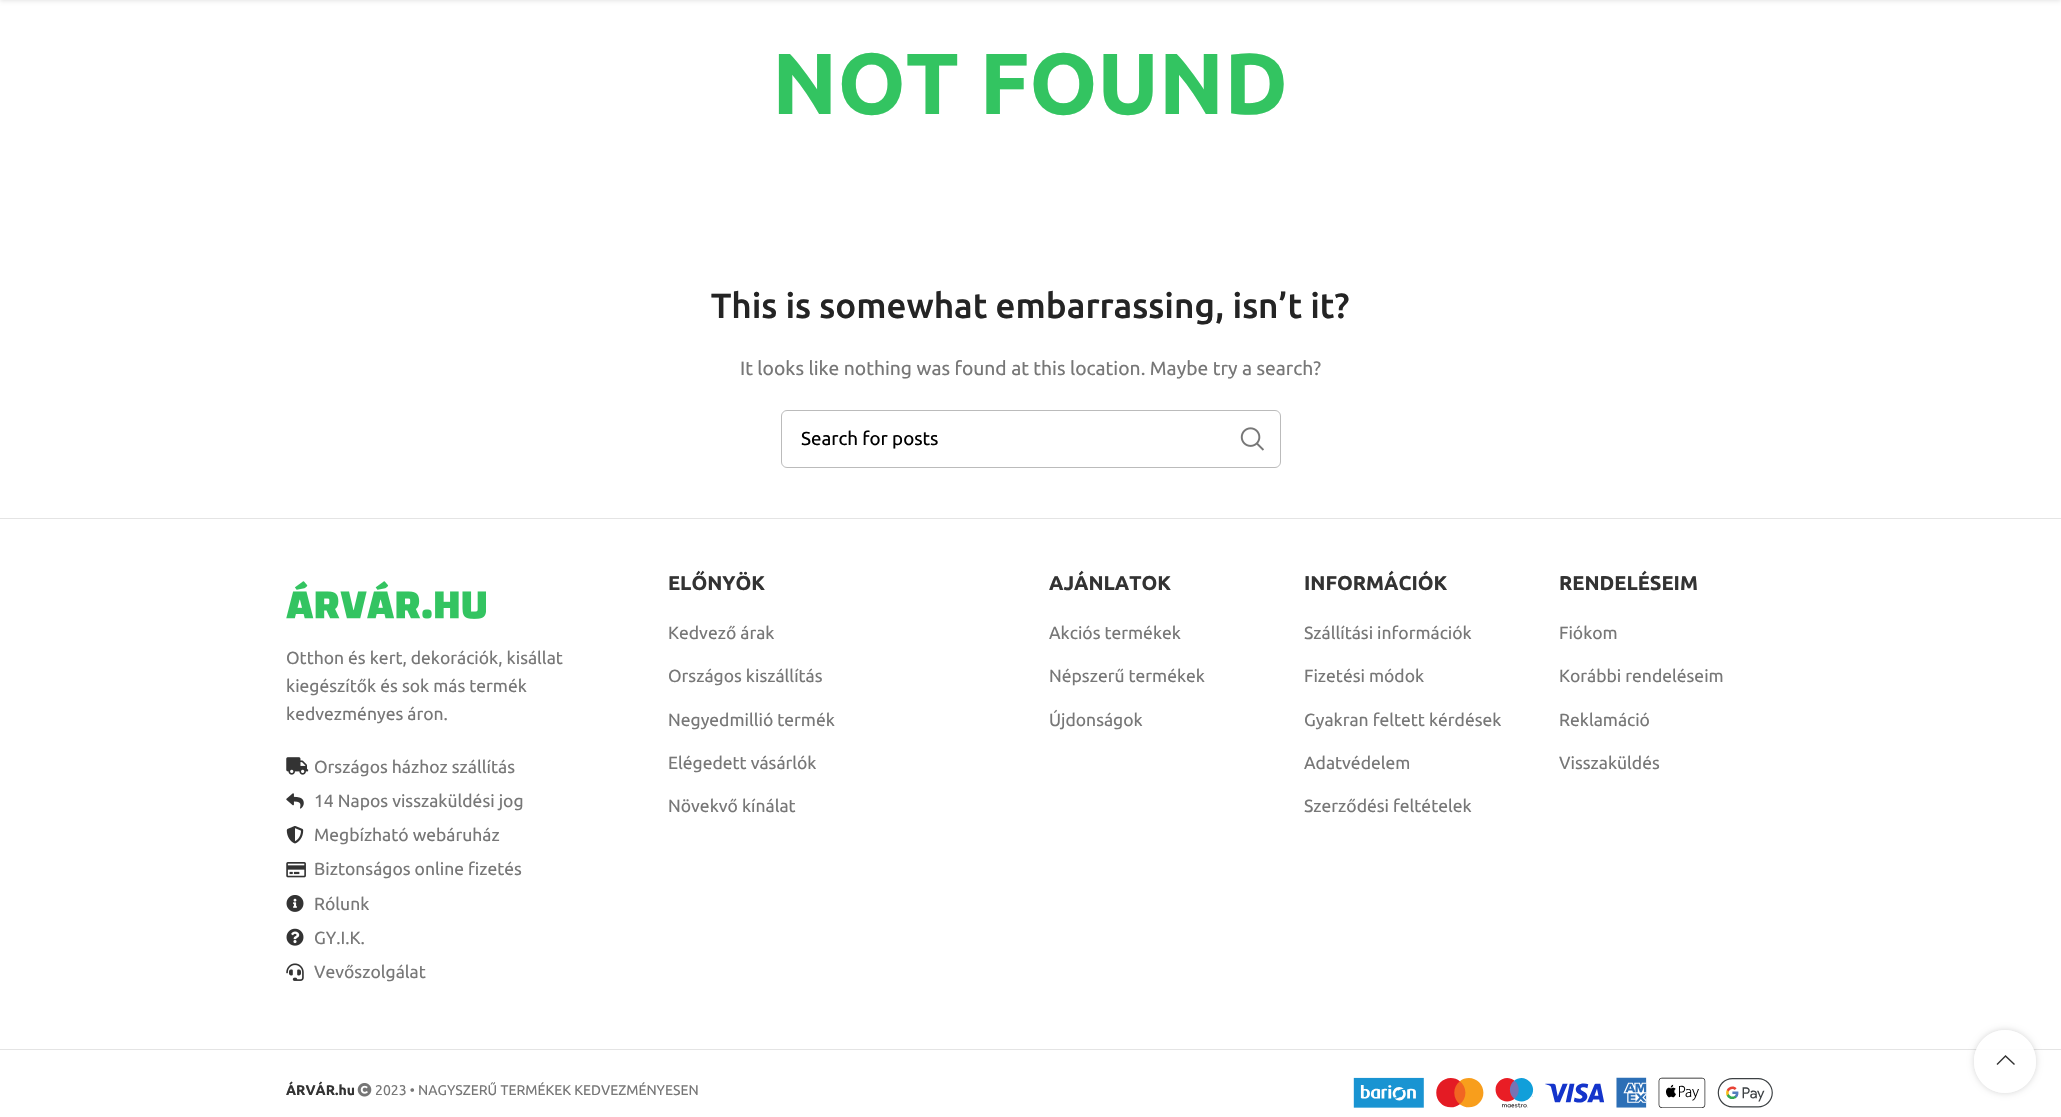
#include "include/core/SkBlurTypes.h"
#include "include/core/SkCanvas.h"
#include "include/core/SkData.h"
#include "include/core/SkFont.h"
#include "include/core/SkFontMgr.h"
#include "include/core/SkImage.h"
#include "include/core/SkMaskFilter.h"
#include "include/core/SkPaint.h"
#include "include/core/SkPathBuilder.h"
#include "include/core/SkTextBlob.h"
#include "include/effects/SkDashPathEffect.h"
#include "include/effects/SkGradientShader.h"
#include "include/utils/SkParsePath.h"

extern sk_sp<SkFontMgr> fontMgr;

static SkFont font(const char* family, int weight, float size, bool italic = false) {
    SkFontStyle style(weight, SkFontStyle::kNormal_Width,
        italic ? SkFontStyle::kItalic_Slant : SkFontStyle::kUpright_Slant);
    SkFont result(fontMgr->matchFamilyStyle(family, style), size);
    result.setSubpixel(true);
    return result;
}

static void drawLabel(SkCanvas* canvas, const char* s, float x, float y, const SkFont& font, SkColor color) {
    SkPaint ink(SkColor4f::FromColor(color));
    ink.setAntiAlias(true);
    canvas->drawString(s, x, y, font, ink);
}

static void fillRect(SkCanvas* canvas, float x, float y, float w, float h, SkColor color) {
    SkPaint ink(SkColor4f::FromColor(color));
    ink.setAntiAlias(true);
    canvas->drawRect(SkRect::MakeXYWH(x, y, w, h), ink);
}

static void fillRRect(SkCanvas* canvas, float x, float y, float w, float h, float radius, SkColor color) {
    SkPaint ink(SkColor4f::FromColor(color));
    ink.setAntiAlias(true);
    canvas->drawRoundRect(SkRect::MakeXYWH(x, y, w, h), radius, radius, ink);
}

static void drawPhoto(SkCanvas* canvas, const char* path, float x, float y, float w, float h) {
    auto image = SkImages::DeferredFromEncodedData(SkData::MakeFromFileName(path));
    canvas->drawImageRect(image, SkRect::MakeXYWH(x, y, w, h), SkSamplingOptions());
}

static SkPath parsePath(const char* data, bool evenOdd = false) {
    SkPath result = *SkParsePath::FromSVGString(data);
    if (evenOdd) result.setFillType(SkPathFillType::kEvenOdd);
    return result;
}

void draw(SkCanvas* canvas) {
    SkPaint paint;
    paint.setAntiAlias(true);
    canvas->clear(0xFFFFFFFF);
    paint.setColor(0x1A000000);
    paint.setMaskFilter(SkMaskFilter::MakeBlur(kNormal_SkBlurStyle, 2));
    canvas->drawRect(SkRect::MakeXYWH(0, -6, 2061, 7), paint);
    paint.setMaskFilter(nullptr);
    SkFont font1 = font("Ubuntu", 700, 86.5f);
    drawLabel(canvas, "NOT FOUND", 772, 114, font1, 0xFF33C461);
    SkFont font2 = font("Ubuntu", 500, 35);
    drawLabel(canvas, "This is somewhat embarrassing, isn’t it?", 711, 318, font2, 0xFF242424);
    SkFont font3 = font("Ubuntu", 400, 19.25f);
    drawLabel(canvas, "It looks like nothing was found at this location. Maybe try a search?", 740, 375, font3, 0xFF777777);
    paint.setStroke(true);
    paint.setStrokeWidth(1);
    paint.setColor(0xFFBBBBBB);
    canvas->drawRoundRect(SkRect::MakeXYWH(781.5f, 410.5f, 499, 57), 5.5f, 5.5f, paint);
    SkFont font4 = font("Ubuntu", 400, 18.75f);
    drawLabel(canvas, "Search for posts", 801, 445, font4, 0xFF000000);
    drawPhoto(canvas, "assets/img1.png", 1240, 427, 24, 24);
    fillRect(canvas, 0, 518, 2061, 1, 0xFFE4E4E4);
    drawPhoto(canvas, "assets/img2.png", 286, 581, 200, 38);
    SkFont font5 = font("Ubuntu", 400, 17.5f);
    drawLabel(canvas, "Otthon és kert, dekorációk, kisállat", 286, 664, font5, 0xFF777777);
    drawLabel(canvas, "kiegészítők és sok más termék", 286, 692, font5, 0xFF777777);
    drawLabel(canvas, "kedvezményes áron.", 286, 720, font5, 0xFF777777);
    drawPhoto(canvas, "assets/img3.png", 286, 757, 23, 18);
    drawLabel(canvas, "Országos házhoz szállítás", 314, 773, font5, 0xFF777777);
    drawPhoto(canvas, "assets/img4.png", 286, 793, 18, 16);
    drawLabel(canvas, "14 Napos visszaküldési jog", 314, 807, font5, 0xFF777777);
    drawPhoto(canvas, "assets/img5.png", 286, 826, 18, 18);
    drawLabel(canvas, "Megbízható webáruház", 314, 841, font5, 0xFF777777);
    drawPhoto(canvas, "assets/img6.png", 286, 862, 20, 16);
    drawLabel(canvas, "Biztonságos online fizetés", 314, 875, font5, 0xFF777777);
    drawPhoto(canvas, "assets/img7.png", 286, 895, 18, 17);
    drawLabel(canvas, "Rólunk", 314, 910, font5, 0xFF777777);
    drawPhoto(canvas, "assets/img8.png", 286, 928, 18, 18);
    drawLabel(canvas, "GY.I.K.", 314, 944, font5, 0xFF777777);
    drawPhoto(canvas, "assets/img9.png", 286, 963, 18, 18);
    drawLabel(canvas, "Vevőszolgálat", 314, 978, font5, 0xFF777777);
    SkFont font6 = font("Ubuntu", 700, 20);
    drawLabel(canvas, "ELŐNYÖK", 668, 590, font6, 0xFF333333);
    drawLabel(canvas, "Kedvező árak", 668, 639, font5, 0xFF777777);
    drawLabel(canvas, "Országos kiszállítás", 668, 682, font5, 0xFF777777);
    drawLabel(canvas, "Negyedmillió termék", 668, 726, font5, 0xFF777777);
    drawLabel(canvas, "Elégedett vásárlók", 668, 769, font5, 0xFF777777);
    drawLabel(canvas, "Növekvő kínálat", 668, 812, font5, 0xFF777777);
    drawLabel(canvas, "AJÁNLATOK", 1049, 590, font6, 0xFF333333);
    drawLabel(canvas, "Akciós termékek", 1049, 639, font5, 0xFF777777);
    drawLabel(canvas, "Népszerű termékek", 1049, 682, font5, 0xFF777777);
    drawLabel(canvas, "Újdonságok", 1049, 726, font5, 0xFF777777);
    drawLabel(canvas, "INFORMÁCIÓK", 1304, 590, font6, 0xFF333333);
    drawLabel(canvas, "Szállítási információk", 1304, 639, font5, 0xFF777777);
    drawLabel(canvas, "Fizetési módok", 1304, 682, font5, 0xFF777777);
    drawLabel(canvas, "Gyakran feltett kérdések", 1304, 726, font5, 0xFF777777);
    drawLabel(canvas, "Adatvédelem", 1304, 769, font5, 0xFF777777);
    drawLabel(canvas, "Szerződési feltételek", 1304, 812, font5, 0xFF777777);
    drawLabel(canvas, "RENDELÉSEIM", 1559, 590, font6, 0xFF333333);
    drawLabel(canvas, "Fiókom", 1559, 639, font5, 0xFF777777);
    drawLabel(canvas, "Korábbi rendeléseim", 1559, 682, font5, 0xFF777777);
    drawLabel(canvas, "Reklamáció", 1559, 726, font5, 0xFF777777);
    drawLabel(canvas, "Visszaküldés", 1559, 769, font5, 0xFF777777);
    fillRect(canvas, 0, 1049, 2061, 1, 0xFFE4E4E4);
    SkFont font7 = font("Ubuntu", 700, 14);
    drawLabel(canvas, "ÁRVÁR.hu", 286, 1095, font7, 0xFF333333);
    drawPhoto(canvas, "assets/img10.png", 357, 1083, 15, 14);
    SkFont font8 = font("Ubuntu", 400, 14);
    drawLabel(canvas, "2023 • NAGYSZERŰ TERMÉKEK KEDVEZMÉNYESEN", 375, 1095, font8, 0xFF777777);
    drawPhoto(canvas, "assets/img11.png", 1353, 1077, 420, 31);
    canvas->save();
    canvas->clipPath(parsePath("M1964 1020H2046V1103H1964ZM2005 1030C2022 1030 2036 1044 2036 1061V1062C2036 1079 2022 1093 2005 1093C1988 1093 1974 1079 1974 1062V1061C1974 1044 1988 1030 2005 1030Z", true), true);
    paint.setStroke(false);
    paint.setColor(0x2B000000);
    paint.setMaskFilter(SkMaskFilter::MakeBlur(kNormal_SkBlurStyle, 3));
    canvas->drawRoundRect(SkRect::MakeXYWH(1974, 1030, 62, 63), 31, 31, paint);
    paint.setMaskFilter(nullptr);
    canvas->restore();
    fillRRect(canvas, 1974, 1030, 62, 63, 31, 0xE6FFFFFF);
    paint.setColor(0xFF333333);
    canvas->drawPath(parsePath("M2014 1065L2015 1064L2005.5 1055L1996.5 1064L1997.5 1065L2005.5 1057Z"), paint);
}
